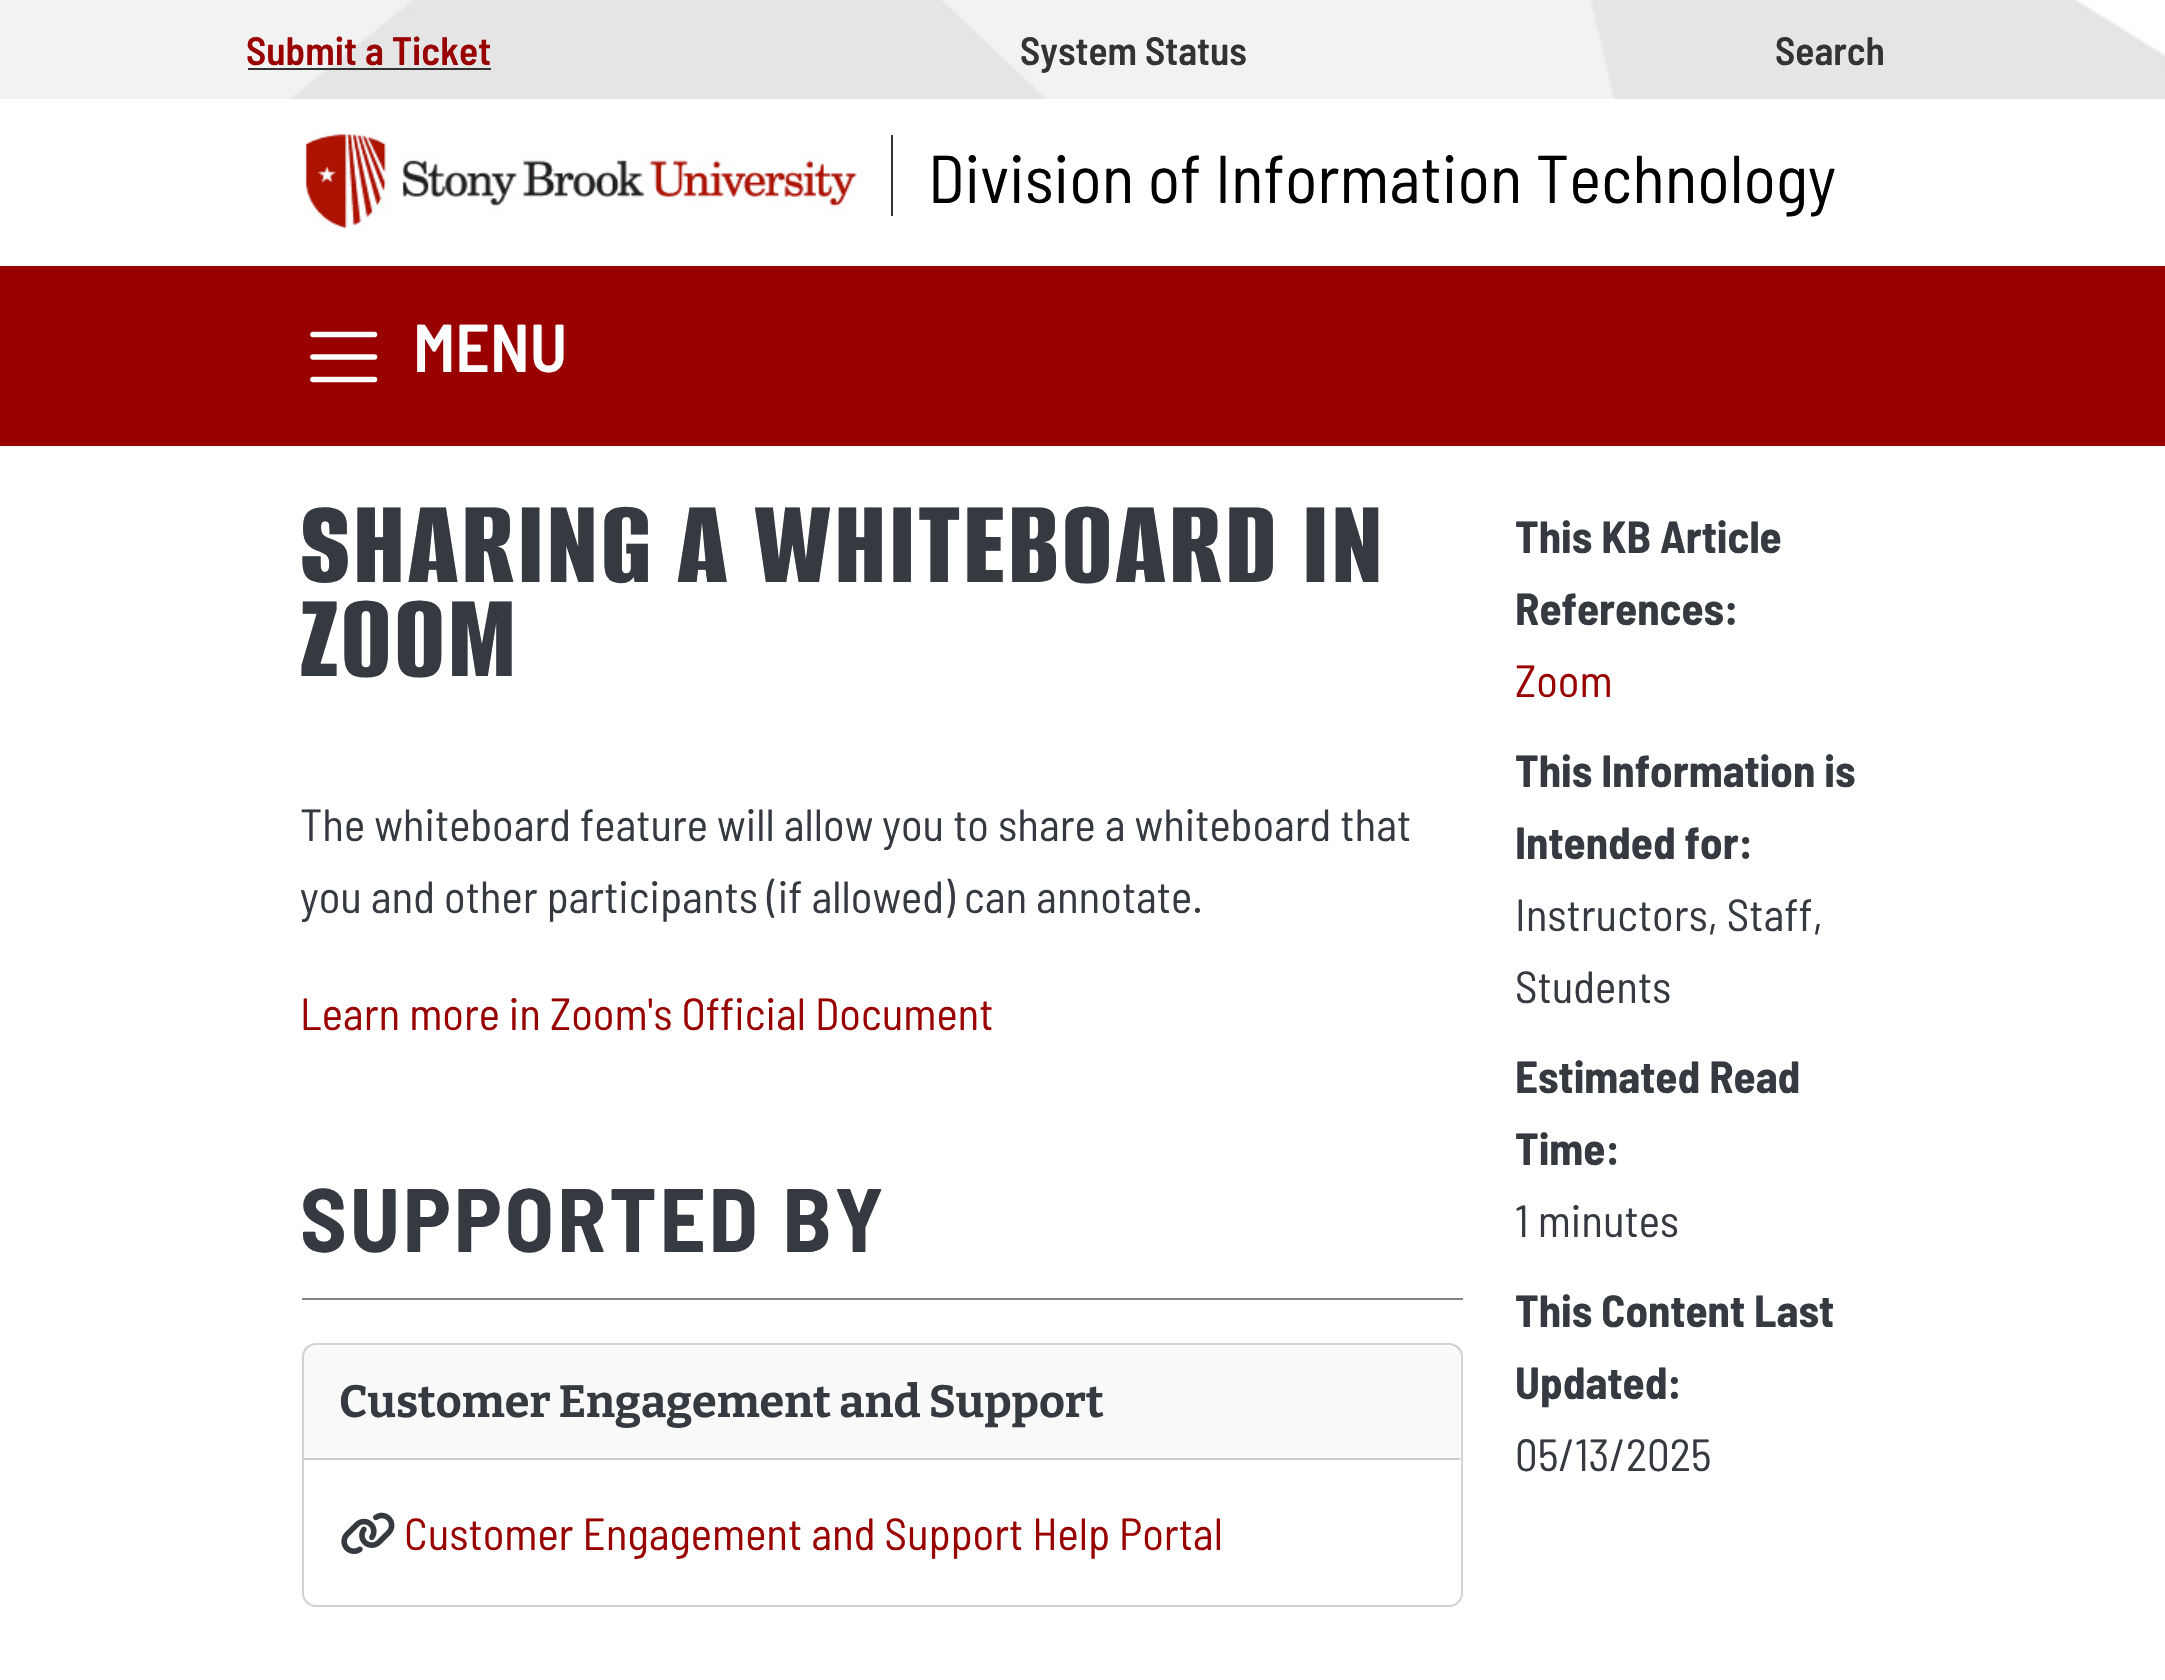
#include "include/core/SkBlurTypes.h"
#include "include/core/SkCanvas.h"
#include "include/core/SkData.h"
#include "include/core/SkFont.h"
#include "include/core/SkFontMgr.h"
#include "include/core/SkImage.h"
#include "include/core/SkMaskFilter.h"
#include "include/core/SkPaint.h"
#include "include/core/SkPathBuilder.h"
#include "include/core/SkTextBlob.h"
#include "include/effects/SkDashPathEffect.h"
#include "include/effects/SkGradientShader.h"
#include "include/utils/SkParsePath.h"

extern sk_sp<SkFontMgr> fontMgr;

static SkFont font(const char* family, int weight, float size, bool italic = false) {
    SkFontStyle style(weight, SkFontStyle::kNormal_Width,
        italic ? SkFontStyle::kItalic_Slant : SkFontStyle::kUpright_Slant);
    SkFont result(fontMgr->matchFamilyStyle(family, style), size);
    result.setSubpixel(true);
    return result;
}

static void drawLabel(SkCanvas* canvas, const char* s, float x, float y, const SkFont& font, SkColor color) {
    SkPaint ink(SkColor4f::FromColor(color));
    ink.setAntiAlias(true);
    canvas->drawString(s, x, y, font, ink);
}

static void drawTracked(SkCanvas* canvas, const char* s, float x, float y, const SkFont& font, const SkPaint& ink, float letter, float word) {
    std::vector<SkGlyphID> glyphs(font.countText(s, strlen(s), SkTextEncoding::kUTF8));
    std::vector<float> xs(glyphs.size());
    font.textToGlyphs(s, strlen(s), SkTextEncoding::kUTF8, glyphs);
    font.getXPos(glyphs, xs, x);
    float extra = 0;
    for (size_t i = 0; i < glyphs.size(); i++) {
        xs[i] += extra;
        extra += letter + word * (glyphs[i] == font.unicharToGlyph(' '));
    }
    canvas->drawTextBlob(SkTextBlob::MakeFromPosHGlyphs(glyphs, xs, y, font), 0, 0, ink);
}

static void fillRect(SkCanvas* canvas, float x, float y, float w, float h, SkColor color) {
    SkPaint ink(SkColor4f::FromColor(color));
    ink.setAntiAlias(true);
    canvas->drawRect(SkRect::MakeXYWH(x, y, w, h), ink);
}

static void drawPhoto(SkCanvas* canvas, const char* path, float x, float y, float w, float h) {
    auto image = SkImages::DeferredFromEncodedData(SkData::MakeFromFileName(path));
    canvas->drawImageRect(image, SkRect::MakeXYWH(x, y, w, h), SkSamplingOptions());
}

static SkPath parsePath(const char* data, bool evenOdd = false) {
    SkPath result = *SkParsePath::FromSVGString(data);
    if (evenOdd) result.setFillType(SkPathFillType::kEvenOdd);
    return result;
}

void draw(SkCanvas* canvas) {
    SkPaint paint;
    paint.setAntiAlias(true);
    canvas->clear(0xFFFFFFFF);
    drawPhoto(canvas, "assets/img1.png", 0, 0, 2165, 99);
    SkFont font1 = font("Barlow Semi Condensed", 600, 39.5f);
    drawLabel(canvas, "Submit a Ticket", 246, 65, font1, 0xFF990000);
    fillRect(canvas, 248, 68, 243, 2, 0xFF333333);
    drawLabel(canvas, "System Status", 1020, 65, font1, 0xFF333333);
    drawLabel(canvas, "Search", 1775, 65, font1, 0xFF333333);
    drawPhoto(canvas, "assets/img2.png", 302, 130, 555, 99);
    SkFont font2 = font("Barlow Semi Condensed", 400, 67.5f);
    drawLabel(canvas, "Division of Information Technology", 928, 203, font2, 0xFF000000);
    fillRect(canvas, 891, 135, 2, 81, 0xFF333333);
    fillRect(canvas, 0, 266, 2165, 180, 0xFF990000);
    paint.setStroke(true);
    paint.setStrokeWidth(5.6f);
    paint.setStrokeCap(SkPaint::kRound_Cap);
    paint.setColor(0xFFFFFFFF);
    canvas->drawPath(parsePath("M313 334.5H374.5M313 357H374.5M313 379.5H374.5"), paint);
    SkFont font3 = font("Barlow Semi Condensed", 600, 67.5f);
    drawLabel(canvas, "MENU", 413, 372, font3, 0xFFFFFFFF);
    SkFont font4 = font("Alumni Sans", 800, 126);
    paint.setStroke(false);
    paint.setColor(0xFF343A40);
    drawTracked(canvas, "SHARING A WHITEBOARD IN", 300, 582, font4, paint, 3.15f, 0);
    drawTracked(canvas, "ZOOM", 300, 676, font4, paint, 3.15f, 0);
    SkFont font5 = font("Barlow Semi Condensed", 400, 45);
    drawLabel(canvas, "The whiteboard feature will allow you to share a whiteboard that", 300, 841, font5, 0xFF343A40);
    drawLabel(canvas, "you and other participants (if allowed) can annotate.", 300, 913, font5, 0xFF343A40);
    drawLabel(canvas, "Learn more in Zoom's Official Document", 300, 1030, font5, 0xFF990000);
    SkFont font6 = font("Barlow Semi Condensed", 700, 90);
    drawTracked(canvas, "SUPPORTED BY", 300, 1252, font6, paint, 3.15f, 0);
    fillRect(canvas, 302, 1298, 1161, 2, 0xFF858585);
    paint.setStroke(true);
    paint.setStrokeWidth(2);
    paint.setStrokeCap(SkPaint::kButt_Cap);
    paint.setColor(0xFFD2D2D2);
    canvas->drawRoundRect(SkRect::MakeXYWH(303, 1344, 1159, 262), 13, 13, paint);
    fillRect(canvas, 304, 1346, 1156, 112, 0x08343A40);
    fillRect(canvas, 304, 1458, 1156, 2, 0xFFCDCDCD);
    SkFont font7 = font("Bitter", 700, 45);
    drawLabel(canvas, "Customer Engagement and Support", 339, 1417, font7, 0xFF343A40);
    drawPhoto(canvas, "assets/img3.png", 341, 1512, 54, 42);
    drawLabel(canvas, "Customer Engagement and Support Help Portal", 404, 1550, font5, 0xFF990000);
    SkFont font8 = font("Barlow Semi Condensed", 700, 45);
    drawLabel(canvas, "This KB Article", 1515, 553, font8, 0xFF343A40);
    drawLabel(canvas, "References:", 1515, 625, font8, 0xFF343A40);
    drawLabel(canvas, "Zoom", 1515, 697, font5, 0xFF990000);
    drawLabel(canvas, "This Information is", 1515, 787, font8, 0xFF343A40);
    drawLabel(canvas, "Intended for:", 1515, 859, font8, 0xFF343A40);
    drawLabel(canvas, "Instructors, Staff,", 1515, 931, font5, 0xFF343A40);
    drawLabel(canvas, "Students", 1515, 1003, font5, 0xFF343A40);
    drawLabel(canvas, "Estimated Read", 1515, 1093, font8, 0xFF343A40);
    drawLabel(canvas, "Time:", 1515, 1165, font8, 0xFF343A40);
    drawLabel(canvas, "1 minutes", 1515, 1237, font5, 0xFF343A40);
    drawLabel(canvas, "This Content Last", 1515, 1327, font8, 0xFF343A40);
    drawLabel(canvas, "Updated:", 1515, 1399, font8, 0xFF343A40);
    drawLabel(canvas, "05/13/2025", 1515, 1471, font5, 0xFF343A40);
}
